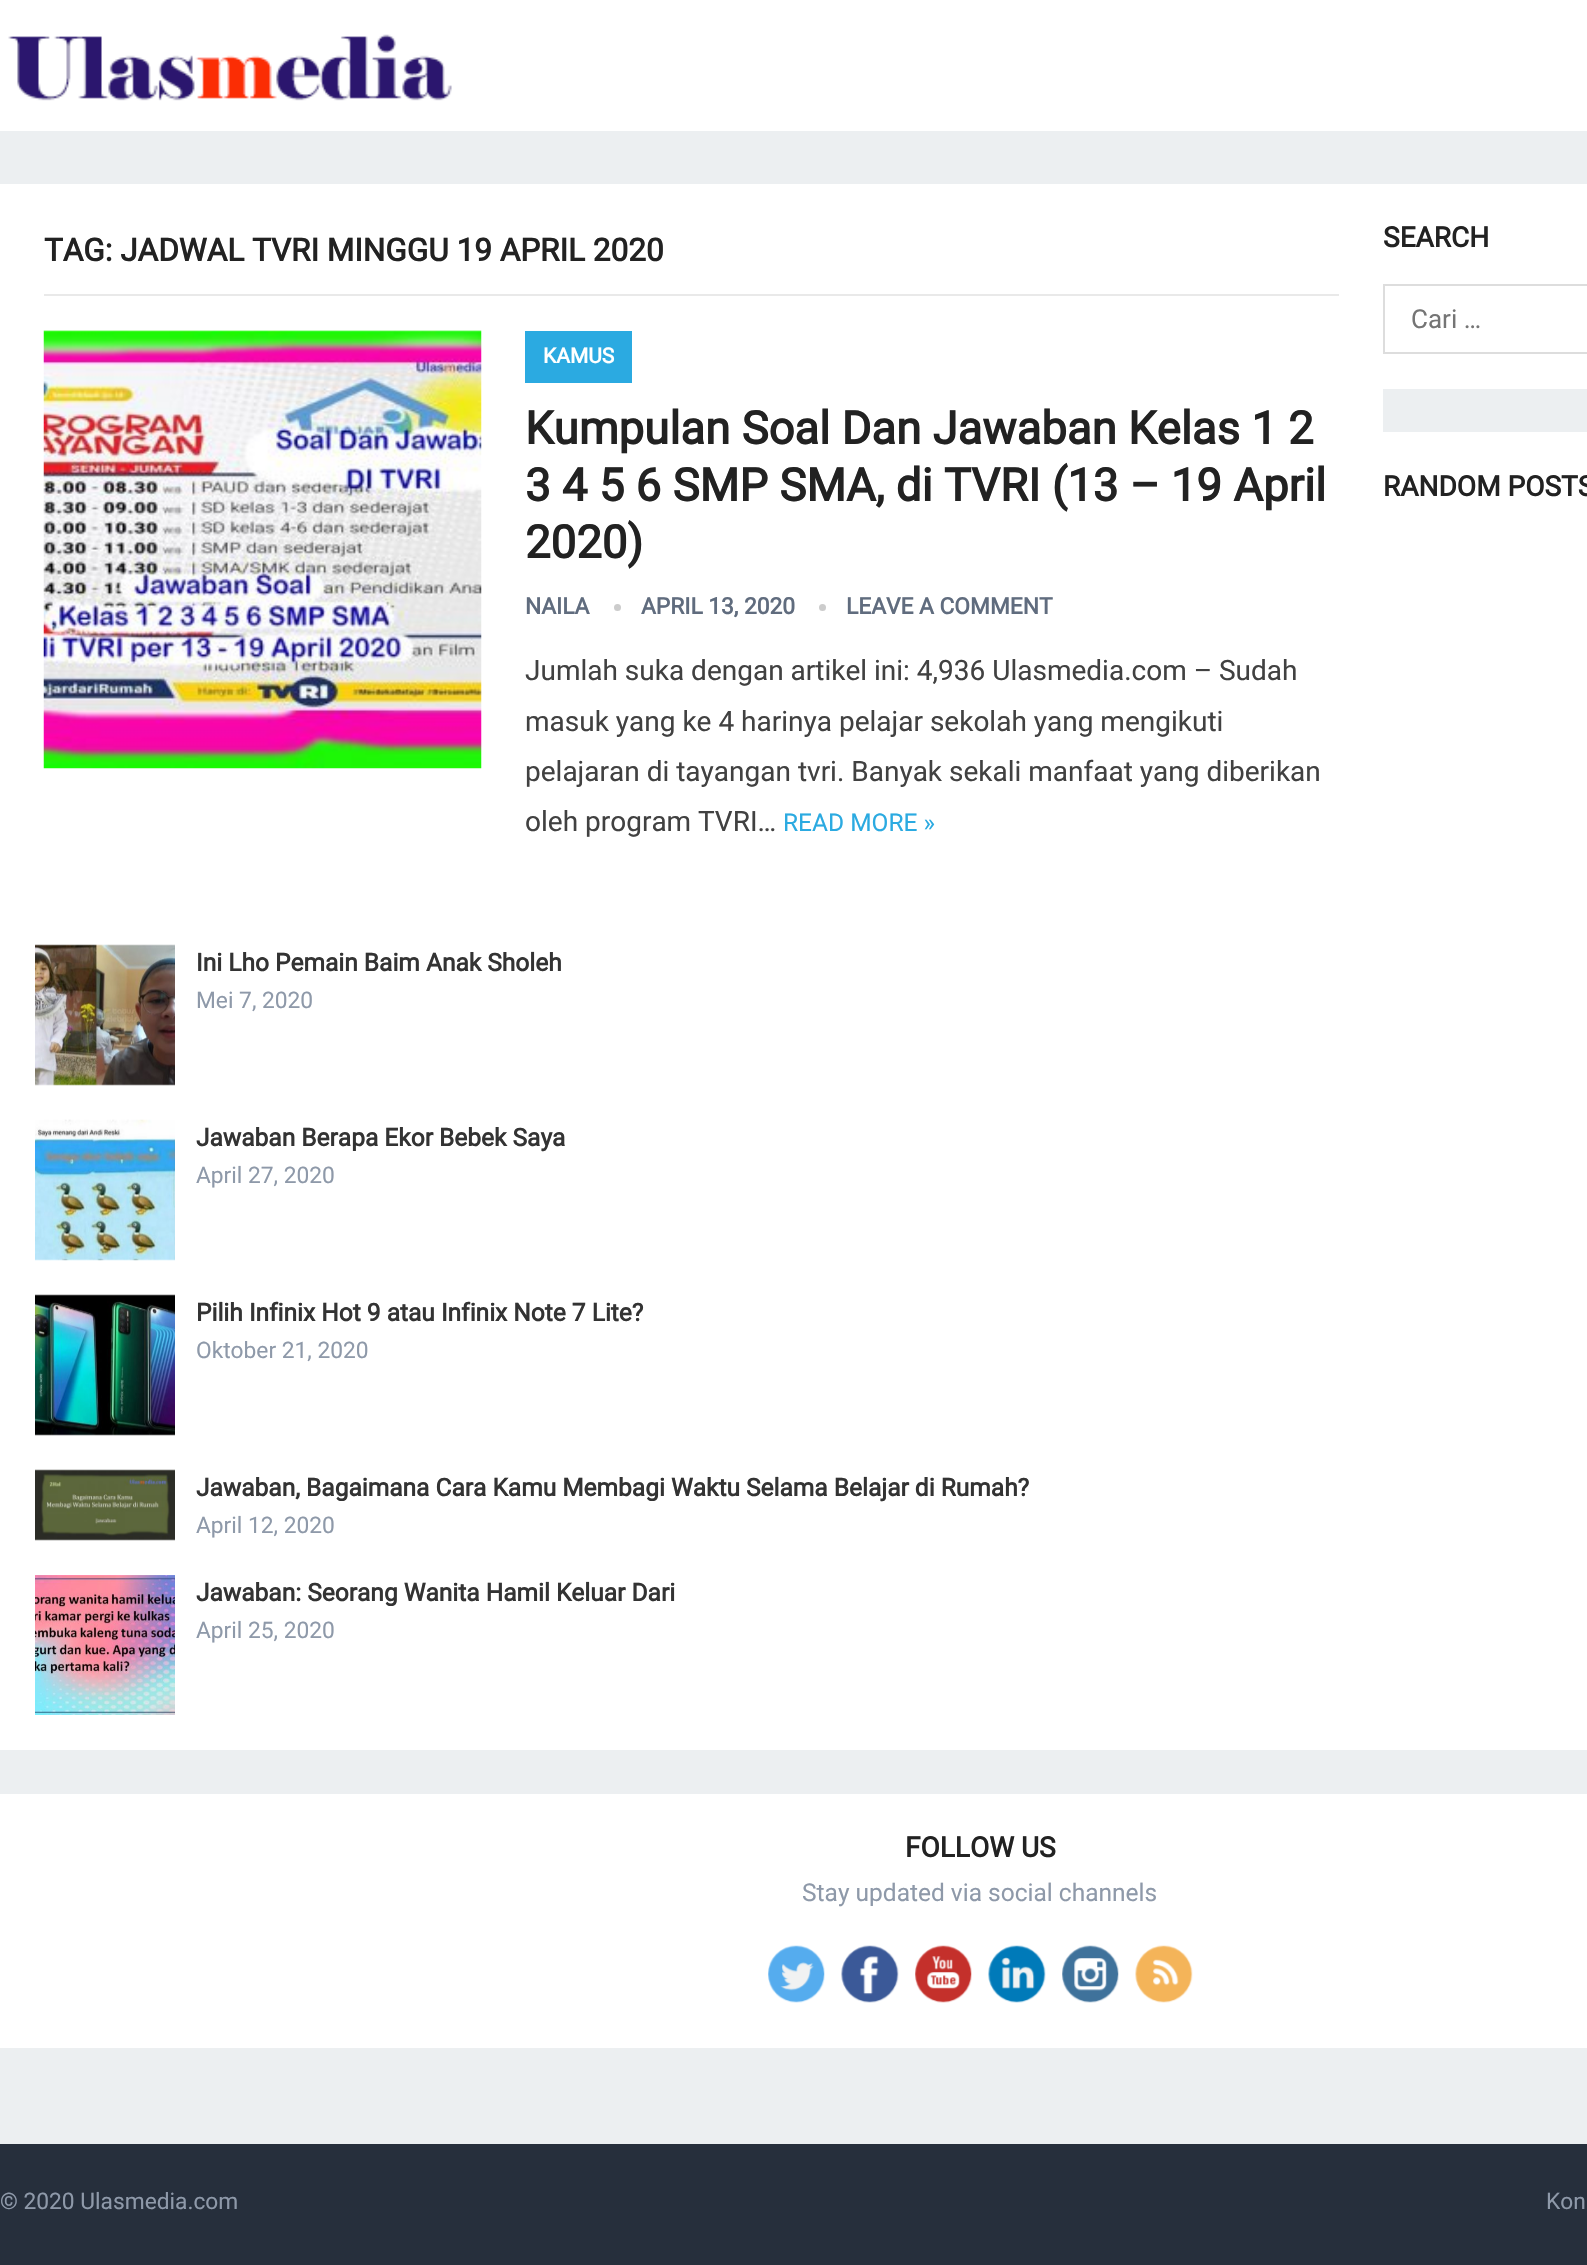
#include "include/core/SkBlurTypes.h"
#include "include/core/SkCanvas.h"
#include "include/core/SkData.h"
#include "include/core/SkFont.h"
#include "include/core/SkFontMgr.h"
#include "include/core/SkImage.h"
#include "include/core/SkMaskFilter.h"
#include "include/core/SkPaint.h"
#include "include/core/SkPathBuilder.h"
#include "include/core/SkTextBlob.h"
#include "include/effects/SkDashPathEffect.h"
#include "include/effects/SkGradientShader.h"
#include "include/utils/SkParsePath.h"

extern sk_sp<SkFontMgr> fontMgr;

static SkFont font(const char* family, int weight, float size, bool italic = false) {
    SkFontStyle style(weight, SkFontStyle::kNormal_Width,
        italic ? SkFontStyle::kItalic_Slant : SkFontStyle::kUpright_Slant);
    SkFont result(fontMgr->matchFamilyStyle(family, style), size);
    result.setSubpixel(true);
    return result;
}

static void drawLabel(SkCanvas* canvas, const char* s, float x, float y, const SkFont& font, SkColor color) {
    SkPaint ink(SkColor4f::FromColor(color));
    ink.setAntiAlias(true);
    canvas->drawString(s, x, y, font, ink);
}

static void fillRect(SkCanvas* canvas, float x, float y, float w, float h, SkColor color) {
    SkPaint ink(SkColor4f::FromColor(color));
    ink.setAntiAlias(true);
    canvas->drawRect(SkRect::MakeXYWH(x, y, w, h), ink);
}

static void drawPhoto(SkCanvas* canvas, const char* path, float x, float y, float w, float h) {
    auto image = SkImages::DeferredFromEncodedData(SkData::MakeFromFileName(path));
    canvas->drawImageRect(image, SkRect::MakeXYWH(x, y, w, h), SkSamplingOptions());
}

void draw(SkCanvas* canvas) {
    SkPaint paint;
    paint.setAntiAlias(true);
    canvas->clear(0xFFECEFF1);
    fillRect(canvas, 0, 0, 1587, 131, 0xFFFFFFFF);
    drawPhoto(canvas, "assets/img1.png", 8, 34, 444, 67);
    fillRect(canvas, 1383, 184, 204, 205, 0xFFFFFFFF);
    SkFont font1 = font("Roboto", 700, 28);
    drawLabel(canvas, "SEARCH", 1383, 247, font1, 0xFF222222);
    paint.setStroke(true);
    paint.setStrokeWidth(2);
    paint.setColor(0xFFDDDDDD);
    canvas->drawRect(SkRect::MakeXYWH(1384, 285, 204, 68), paint);
    SkFont font2 = font("Roboto", 400, 26);
    drawLabel(canvas, "Cari …", 1411, 328, font2, 0xFF757575);
    fillRect(canvas, 0, 432, 1587, 1318, 0xFFFFFFFF);
    drawLabel(canvas, "RANDOM POSTS", 1383, 496, font1, 0xFF222222);
    drawPhoto(canvas, "assets/img2.png", 35, 944, 140, 142);
    SkFont font3 = font("Roboto", 700, 24.5f);
    drawLabel(canvas, "Ini Lho Pemain Baim Anak Sholeh", 196, 971, font3, 0xFF333333);
    SkFont font4 = font("Roboto", 400, 22.75f);
    drawLabel(canvas, "Mei 7, 2020", 196, 1008, font4, 0xFF8E99A9);
    drawPhoto(canvas, "assets/img3.png", 35, 1119, 140, 142);
    drawLabel(canvas, "Jawaban Berapa Ekor Bebek Saya", 196, 1146, font3, 0xFF333333);
    drawLabel(canvas, "April 27, 2020", 196, 1183, font4, 0xFF8E99A9);
    drawPhoto(canvas, "assets/img4.png", 35, 1294, 140, 142);
    drawLabel(canvas, "Pilih Infinix Hot 9 atau Infinix Note 7 Lite?", 196, 1321, font3, 0xFF333333);
    drawLabel(canvas, "Oktober 21, 2020", 196, 1358, font4, 0xFF8E99A9);
    drawPhoto(canvas, "assets/img5.png", 35, 1469, 140, 72);
    drawLabel(canvas, "Jawaban, Bagaimana Cara Kamu Membagi Waktu Selama Belajar di Rumah?", 196, 1496, font3, 0xFF333333);
    drawLabel(canvas, "April 12, 2020", 196, 1533, font4, 0xFF8E99A9);
    drawPhoto(canvas, "assets/img6.png", 35, 1575, 140, 140);
    drawLabel(canvas, "Jawaban: Seorang Wanita Hamil Keluar Dari", 196, 1601, font3, 0xFF333333);
    drawLabel(canvas, "April 25, 2020", 196, 1638, font4, 0xFF8E99A9);
    fillRect(canvas, 0, 1794, 1587, 254, 0xFFFFFFFF);
    drawLabel(canvas, "FOLLOW US", 905, 1857, font1, 0xFF222222);
    SkFont font5 = font("Roboto", 400, 24.5f);
    drawLabel(canvas, "Stay updated via social channels", 802, 1901, font5, 0xFF8E99A9);
    drawPhoto(canvas, "assets/img7.png", 768, 1945, 57, 58);
    drawPhoto(canvas, "assets/img8.png", 841, 1945, 58, 58);
    drawPhoto(canvas, "assets/img9.png", 915, 1945, 57, 58);
    drawPhoto(canvas, "assets/img10.png", 988, 1945, 58, 58);
    drawPhoto(canvas, "assets/img11.png", 1062, 1945, 57, 58);
    drawPhoto(canvas, "assets/img12.png", 1135, 1945, 58, 58);
    fillRect(canvas, 0, 184, 1383, 248, 0xFFFFFFFF);
    fillRect(canvas, 44, 294, 1295, 2, 0xFFE9E9E9);
    SkFont font6 = font("Roboto", 700, 31.5f);
    drawLabel(canvas, "TAG: JADWAL TVRI MINGGU 19 APRIL 2020", 44, 261, font6, 0xFF222222);
    drawPhoto(canvas, "assets/img13.png", 43, 330, 439, 439);
    fillRect(canvas, 525, 331, 107, 52, 0xFF2BAAE1);
    SkFont font7 = font("Roboto", 700, 21);
    drawLabel(canvas, "KAMUS", 543, 363, font7, 0xFFFFFFFF);
    SkFont font8 = font("Roboto", 700, 45.5f);
    drawLabel(canvas, "Kumpulan Soal Dan Jawaban Kelas 1 2", 525, 444, font8, 0xFF222222);
    drawLabel(canvas, "3 4 5 6 SMP SMA, di TVRI (13 – 19 April", 525, 501, font8, 0xFF222222);
    drawLabel(canvas, "2020)", 525, 558, font8, 0xFF222222);
    SkFont font9 = font("Roboto", 700, 22.75f);
    drawLabel(canvas, "NAILA", 525, 614, font9, 0xFF606C7E);
    paint.setStroke(false);
    paint.setColor(0xFFCCCCCC);
    canvas->drawCircle(617.5f, 607.5f, 3.5f, paint);
    drawLabel(canvas, "APRIL 13, 2020", 641, 614, font9, 0xFF606C7E);
    canvas->drawCircle(822.5f, 607.5f, 3.5f, paint);
    drawLabel(canvas, "LEAVE A COMMENT", 846, 614, font9, 0xFF606C7E);
    SkFont font10 = font("Roboto", 400, 28);
    drawLabel(canvas, "Jumlah suka dengan artikel ini: 4,936 Ulasmedia.com – Sudah", 525, 680, font10, 0xFF414141);
    drawLabel(canvas, "masuk yang ke 4 harinya pelajar sekolah yang mengikuti", 525, 731, font10, 0xFF414141);
    drawLabel(canvas, "pelajaran di tayangan tvri. Banyak sekali manfaat yang diberikan", 525, 781, font10, 0xFF414141);
    drawLabel(canvas, "oleh program TVRI…", 525, 831, font10, 0xFF414141);
    drawLabel(canvas, "READ MORE »", 783, 831, font5, 0xFF2BAAE1);
    fillRect(canvas, 0, 2144, 1587, 121, 0xFF262F3C);
    drawLabel(canvas, "© 2020 Ulasmedia.com", 0, 2209, font4, 0xFF8E99A9);
    drawLabel(canvas, "Kon", 1546, 2209, font4, 0xFF8E99A9);
}
